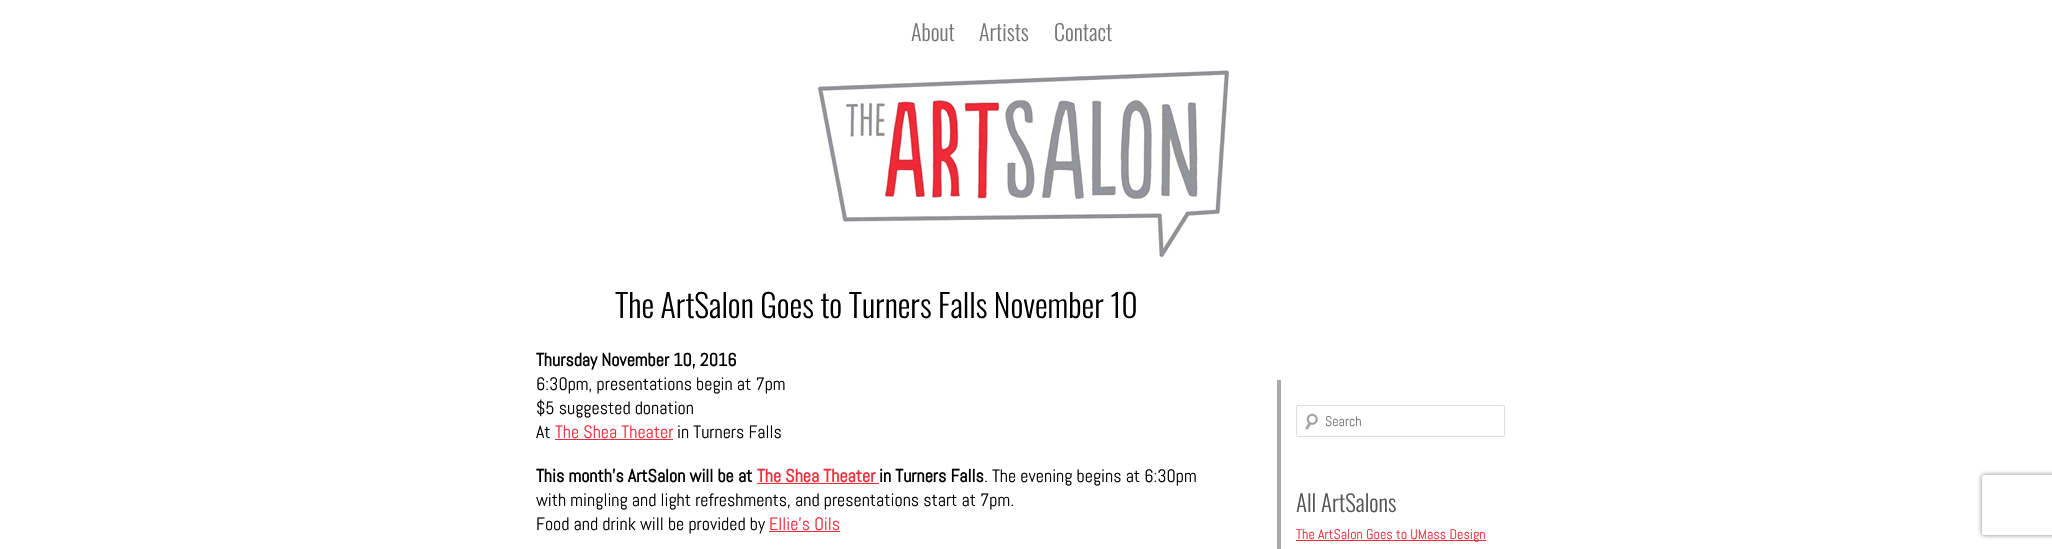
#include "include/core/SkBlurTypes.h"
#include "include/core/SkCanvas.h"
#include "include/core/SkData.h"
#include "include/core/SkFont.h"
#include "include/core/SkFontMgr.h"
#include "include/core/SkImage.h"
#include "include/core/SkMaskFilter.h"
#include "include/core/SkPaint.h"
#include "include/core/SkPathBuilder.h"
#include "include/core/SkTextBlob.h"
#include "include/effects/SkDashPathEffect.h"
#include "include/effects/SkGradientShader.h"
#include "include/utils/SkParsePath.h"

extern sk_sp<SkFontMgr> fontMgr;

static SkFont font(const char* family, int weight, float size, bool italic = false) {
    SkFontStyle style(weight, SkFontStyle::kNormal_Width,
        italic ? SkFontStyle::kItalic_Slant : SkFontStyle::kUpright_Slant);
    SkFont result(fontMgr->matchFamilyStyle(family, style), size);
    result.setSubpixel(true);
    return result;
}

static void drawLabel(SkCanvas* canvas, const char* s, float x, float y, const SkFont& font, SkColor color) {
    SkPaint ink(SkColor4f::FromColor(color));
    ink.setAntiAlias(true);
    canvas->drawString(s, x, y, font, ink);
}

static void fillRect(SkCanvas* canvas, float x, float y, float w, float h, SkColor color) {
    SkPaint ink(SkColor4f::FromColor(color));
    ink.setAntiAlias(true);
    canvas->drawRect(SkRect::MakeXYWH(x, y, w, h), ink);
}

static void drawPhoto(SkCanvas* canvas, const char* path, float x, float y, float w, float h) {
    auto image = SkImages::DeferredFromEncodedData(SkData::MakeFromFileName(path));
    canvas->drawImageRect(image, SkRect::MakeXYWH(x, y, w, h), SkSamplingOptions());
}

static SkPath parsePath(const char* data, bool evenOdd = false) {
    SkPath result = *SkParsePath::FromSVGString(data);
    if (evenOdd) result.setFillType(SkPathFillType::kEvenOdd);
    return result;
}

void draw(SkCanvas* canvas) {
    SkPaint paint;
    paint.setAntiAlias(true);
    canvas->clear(0xFFFFFFFF);
    SkFont font1 = font("Oswald", 300, 22);
    drawLabel(canvas, "About", 911, 41, font1, 0xFF757575);
    drawLabel(canvas, "Artists", 979, 41, font1, 0xFF757575);
    drawLabel(canvas, "Contact", 1054, 41, font1, 0xFF757575);
    drawPhoto(canvas, "assets/img1.png", 818, 70, 411, 188);
    SkFont font2 = font("Oswald", 300, 32);
    drawLabel(canvas, "The ArtSalon Goes to Turners Falls November 10", 615, 318, font2, 0xFF000000);
    SkFont font3 = font("Abel", 700, 18);
    drawLabel(canvas, "Thursday November 10, 2016", 536, 366, font3, 0xFF000000);
    SkFont font4 = font("Abel", 400, 18);
    drawLabel(canvas, "6:30pm, presentations begin at 7pm", 536, 390, font4, 0xFF000000);
    drawLabel(canvas, "$5 suggested donation", 536, 414, font4, 0xFF000000);
    drawLabel(canvas, "At", 536, 438, font4, 0xFF000000);
    drawLabel(canvas, "The Shea Theater", 555, 438, font4, 0xFFEE2B38);
    fillRect(canvas, 555, 439, 118, 1, 0xFFEE2B38);
    drawLabel(canvas, "in Turners Falls", 677, 438, font4, 0xFF000000);
    drawLabel(canvas, "This month’s ArtSalon will be at", 536, 482, font3, 0xFF000000);
    drawLabel(canvas, "The Shea Theater", 757, 482, font3, 0xFFEE2B38);
    fillRect(canvas, 757, 483, 122, 1, 0xFFEE2B38);
    drawLabel(canvas, "in Turners Falls", 879, 482, font3, 0xFF000000);
    drawLabel(canvas, ". The evening begins at 6:30pm", 984, 482, font4, 0xFF000000);
    drawLabel(canvas, "with mingling and light refreshments, and presentations start at 7pm.", 536, 506, font4, 0xFF000000);
    drawLabel(canvas, "Food and drink will be provided by", 536, 530, font4, 0xFF000000);
    drawLabel(canvas, "Ellie’s Oils", 769, 530, font4, 0xFFEE2B38);
    fillRect(canvas, 769, 531, 71, 1, 0xFFEE2B38);
    fillRect(canvas, 1277, 380, 4, 169, 0xFFA7A8AB);
    drawPhoto(canvas, "assets/img2.png", 1305, 413, 13, 17);
    paint.setStroke(true);
    paint.setStrokeWidth(1);
    paint.setColor(0xFFDDDDDD);
    canvas->drawRoundRect(SkRect::MakeXYWH(1296.5f, 405.5f, 208, 31), 1.5f, 1.5f, paint);
    SkFont font5 = font("Abel", 400, 14);
    drawLabel(canvas, "Search", 1325, 426, font5, 0xFF757575);
    SkFont font6 = font("Oswald", 300, 23);
    drawLabel(canvas, "All ArtSalons", 1296, 512, font6, 0xFF555555);
    fillRect(canvas, 1296, 540, 190, 1, 0xFFEE2B38);
    drawLabel(canvas, "The ArtSalon Goes to UMass Design", 1296, 539, font5, 0xFFEE2B38);
    canvas->save();
    canvas->clipPath(parsePath("M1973 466H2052V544H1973ZM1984 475H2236C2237 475 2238 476 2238 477V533C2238 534 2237 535 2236 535H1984C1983 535 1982 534 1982 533V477C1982 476 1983 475 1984 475Z", true), true);
    paint.setStroke(false);
    paint.setColor(0xFF808080);
    paint.setMaskFilter(SkMaskFilter::MakeBlur(kNormal_SkBlurStyle, 2.5f));
    canvas->drawRoundRect(SkRect::MakeXYWH(1982, 475, 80, 60), 2, 2, paint);
    paint.setMaskFilter(nullptr);
    canvas->restore();
}
